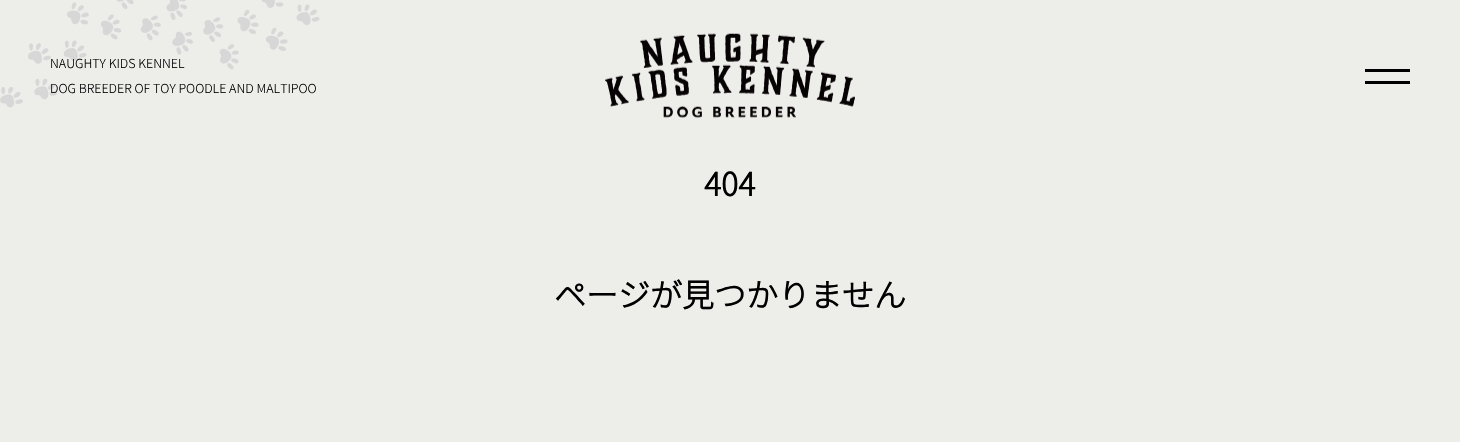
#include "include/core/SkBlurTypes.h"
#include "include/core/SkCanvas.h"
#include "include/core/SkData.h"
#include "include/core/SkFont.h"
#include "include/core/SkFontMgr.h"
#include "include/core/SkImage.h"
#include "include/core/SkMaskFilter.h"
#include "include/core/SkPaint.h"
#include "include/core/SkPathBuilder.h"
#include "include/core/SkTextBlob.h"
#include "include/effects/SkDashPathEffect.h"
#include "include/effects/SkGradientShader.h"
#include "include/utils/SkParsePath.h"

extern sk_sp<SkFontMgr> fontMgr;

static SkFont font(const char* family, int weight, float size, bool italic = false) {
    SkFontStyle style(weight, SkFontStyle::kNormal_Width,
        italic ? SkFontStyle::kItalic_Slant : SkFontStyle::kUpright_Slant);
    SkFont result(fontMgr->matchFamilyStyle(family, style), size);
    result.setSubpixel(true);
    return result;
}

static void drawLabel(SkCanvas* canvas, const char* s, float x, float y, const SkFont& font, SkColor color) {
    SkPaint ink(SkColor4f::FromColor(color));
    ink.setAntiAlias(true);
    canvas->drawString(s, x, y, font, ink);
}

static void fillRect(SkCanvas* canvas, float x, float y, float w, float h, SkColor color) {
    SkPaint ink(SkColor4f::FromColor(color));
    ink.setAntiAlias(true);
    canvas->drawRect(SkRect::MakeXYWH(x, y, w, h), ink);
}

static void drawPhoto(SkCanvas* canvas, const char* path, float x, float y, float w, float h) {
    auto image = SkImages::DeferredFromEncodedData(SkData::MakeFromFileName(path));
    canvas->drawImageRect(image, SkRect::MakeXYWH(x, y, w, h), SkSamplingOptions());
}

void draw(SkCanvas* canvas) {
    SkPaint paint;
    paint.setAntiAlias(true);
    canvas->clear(0xFFEDEDEA);
    drawPhoto(canvas, "assets/img2.png", 0, 0, 320, 108);
    SkFont font1 = font("Noto Sans JP", 100, 12.5f);
    drawLabel(canvas, "NAUGHTY KIDS KENNEL", 50, 68, font1, 0xFF000000);
    drawLabel(canvas, "DOG BREEDER OF TOY POODLE AND MALTIPOO", 50, 93, font1, 0xFF000000);
    drawPhoto(canvas, "assets/img1.png", 605, 33, 250, 85);
    fillRect(canvas, 1365, 69, 45, 3, 0xFF000000);
    fillRect(canvas, 1365, 81, 45, 3, 0xFF000000);
    SkFont font2 = font("Noto Sans JP", 700, 32);
    drawLabel(canvas, "404", 704, 196, font2, 0xFF000000);
    drawLabel(canvas, "ページが見つかりません", 554, 307, font2, 0xFF000000);
}
